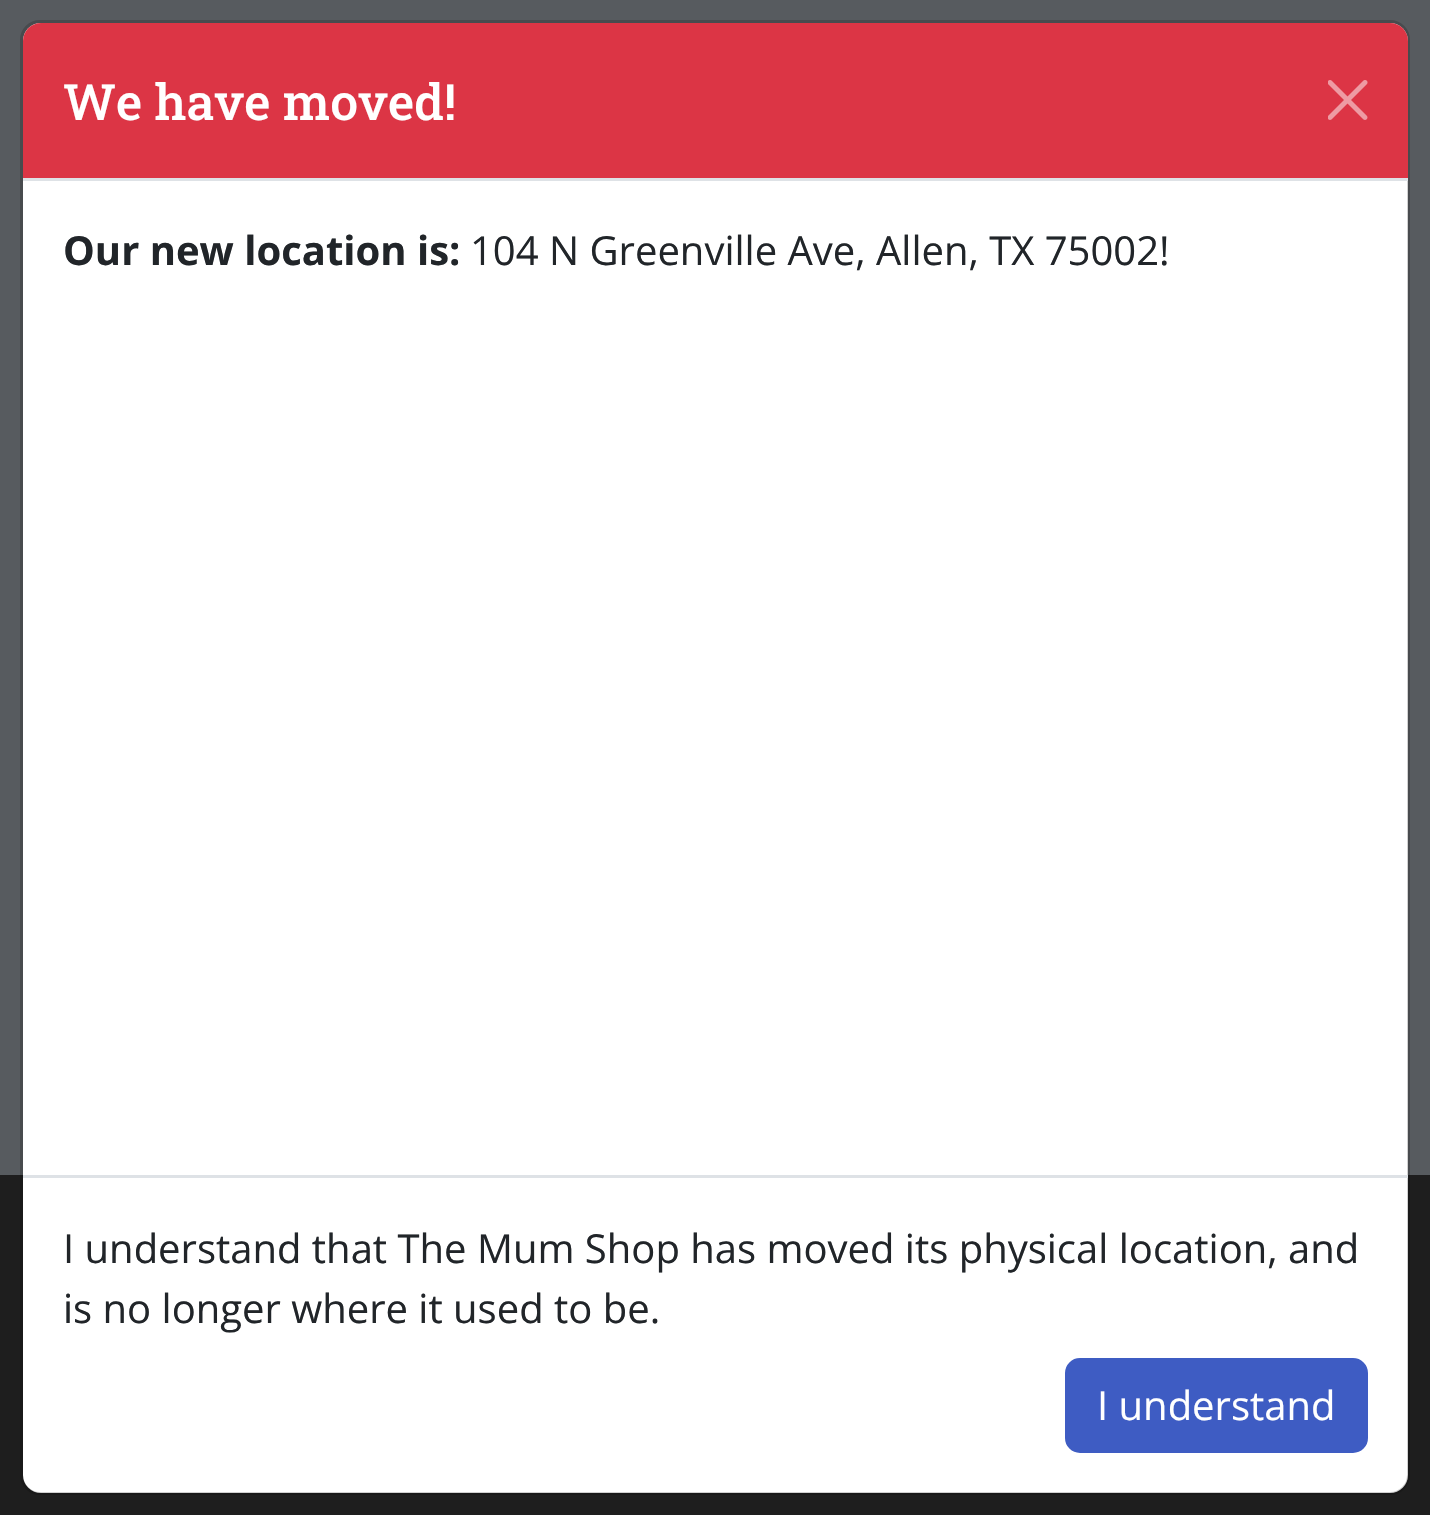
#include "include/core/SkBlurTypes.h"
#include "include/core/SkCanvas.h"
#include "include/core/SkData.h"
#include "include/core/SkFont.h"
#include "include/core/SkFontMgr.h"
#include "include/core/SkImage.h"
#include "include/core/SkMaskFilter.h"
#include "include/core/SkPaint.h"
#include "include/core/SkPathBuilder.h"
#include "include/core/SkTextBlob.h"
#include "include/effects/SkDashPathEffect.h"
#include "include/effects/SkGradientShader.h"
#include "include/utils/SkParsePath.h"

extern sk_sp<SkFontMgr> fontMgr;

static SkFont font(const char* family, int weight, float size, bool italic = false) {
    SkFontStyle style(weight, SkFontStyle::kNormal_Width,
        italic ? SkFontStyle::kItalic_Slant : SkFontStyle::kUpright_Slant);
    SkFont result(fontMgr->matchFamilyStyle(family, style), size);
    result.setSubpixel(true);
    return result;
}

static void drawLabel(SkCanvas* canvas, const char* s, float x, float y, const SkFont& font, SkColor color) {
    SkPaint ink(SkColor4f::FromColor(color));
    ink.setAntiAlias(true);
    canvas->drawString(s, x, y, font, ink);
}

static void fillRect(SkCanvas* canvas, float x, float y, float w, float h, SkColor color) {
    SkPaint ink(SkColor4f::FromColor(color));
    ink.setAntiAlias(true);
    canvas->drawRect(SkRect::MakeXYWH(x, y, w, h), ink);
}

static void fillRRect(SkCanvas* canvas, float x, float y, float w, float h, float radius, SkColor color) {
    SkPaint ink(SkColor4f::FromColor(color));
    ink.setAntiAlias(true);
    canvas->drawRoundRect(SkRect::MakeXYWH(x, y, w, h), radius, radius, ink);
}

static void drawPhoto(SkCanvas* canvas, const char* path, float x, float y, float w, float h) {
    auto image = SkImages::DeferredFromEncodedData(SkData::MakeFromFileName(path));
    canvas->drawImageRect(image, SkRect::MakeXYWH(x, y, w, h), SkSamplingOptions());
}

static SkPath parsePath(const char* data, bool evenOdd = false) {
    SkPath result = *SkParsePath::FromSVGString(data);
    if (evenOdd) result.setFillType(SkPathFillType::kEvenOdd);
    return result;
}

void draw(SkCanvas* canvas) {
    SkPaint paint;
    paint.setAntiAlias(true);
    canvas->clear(0xFF575B5F);
    fillRect(canvas, 0, 1175, 1430, 340, 0xFF1E1E1E);
    fillRRect(canvas, 23, 23, 1385, 1470, 18, 0xFFFFFFFF);
    paint.setStroke(true);
    paint.setStrokeWidth(3);
    paint.setColor(0x2E000000);
    canvas->drawRoundRect(SkRect::MakeXYWH(21.5f, 21.5f, 1387, 1472), 18.5f, 18.5f, paint);
    paint.setStroke(false);
    paint.setColor(0xFFDC3545);
    canvas->drawPath(parsePath("M41 23H1390C1400 23 1408 31 1408 41V180H23V41C23 31 31 23 41 23Z"), paint);
    fillRect(canvas, 23, 178, 1385, 3, 0xFFDEE2E6);
    SkFont font1 = font("Roboto Slab", 500, 50);
    drawLabel(canvas, "We have moved!", 63, 120, font1, 0xFFFFFFFF);
    drawPhoto(canvas, "assets/img1.png", 1328, 80, 40, 40);
    SkFont font2 = font("Open Sans", 700, 40);
    drawLabel(canvas, "Our new location is:", 63, 265, font2, 0xFF212529);
    SkFont font3 = font("Open Sans", 400, 40);
    drawLabel(canvas, "104 N Greenville Ave, Allen, TX 75002!", 470, 265, font3, 0xFF212529);
    fillRect(canvas, 23, 1175, 1385, 3, 0xFFDEE2E6);
    drawLabel(canvas, "I understand that The Mum Shop has moved its physical location, and", 63, 1263, font3, 0xFF212529);
    drawLabel(canvas, "is no longer where it used to be.", 63, 1323, font3, 0xFF212529);
    paint.setColor(0xFF3E5CC3);
    canvas->drawRoundRect(SkRect::MakeXYWH(1066.5f, 1359.5f, 300, 92), 13.5f, 13.5f, paint);
    paint.setStroke(true);
    canvas->drawRoundRect(SkRect::MakeXYWH(1066.5f, 1359.5f, 300, 92), 13.5f, 13.5f, paint);
    drawLabel(canvas, "I understand", 1097, 1420, font3, 0xFFFFFFFF);
}
